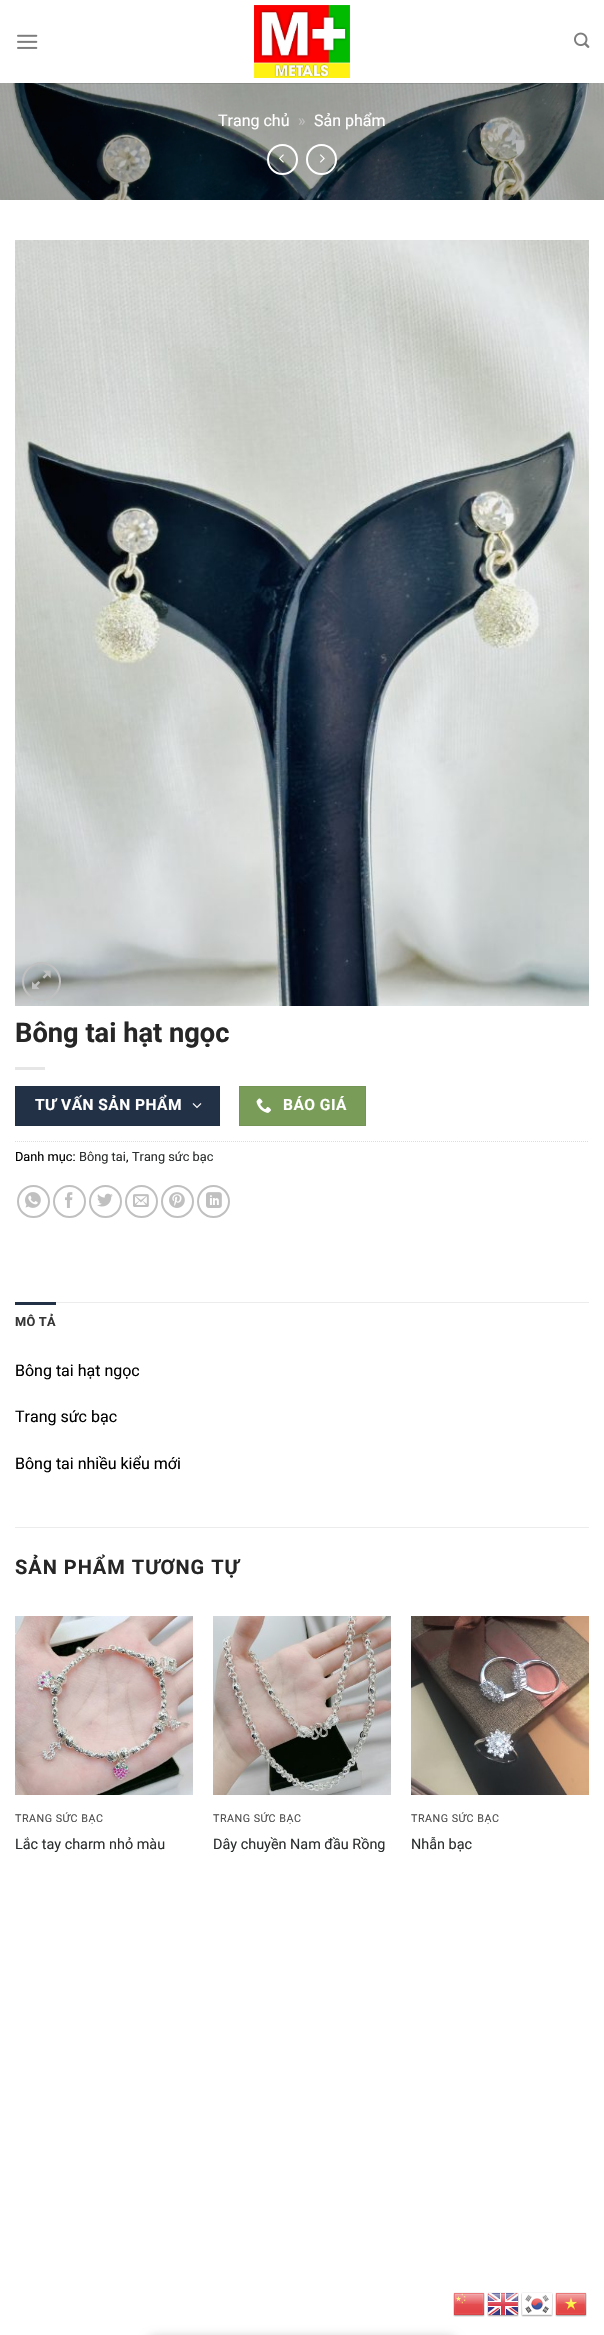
#include "include/core/SkBlurTypes.h"
#include "include/core/SkCanvas.h"
#include "include/core/SkData.h"
#include "include/core/SkFont.h"
#include "include/core/SkFontMgr.h"
#include "include/core/SkImage.h"
#include "include/core/SkMaskFilter.h"
#include "include/core/SkPaint.h"
#include "include/core/SkPathBuilder.h"
#include "include/core/SkTextBlob.h"
#include "include/effects/SkDashPathEffect.h"
#include "include/effects/SkGradientShader.h"
#include "include/utils/SkParsePath.h"

extern sk_sp<SkFontMgr> fontMgr;

static SkFont font(const char* family, int weight, float size, bool italic = false) {
    SkFontStyle style(weight, SkFontStyle::kNormal_Width,
        italic ? SkFontStyle::kItalic_Slant : SkFontStyle::kUpright_Slant);
    SkFont result(fontMgr->matchFamilyStyle(family, style), size);
    result.setSubpixel(true);
    return result;
}

static void drawLabel(SkCanvas* canvas, const char* s, float x, float y, const SkFont& font, SkColor color) {
    SkPaint ink(SkColor4f::FromColor(color));
    ink.setAntiAlias(true);
    canvas->drawString(s, x, y, font, ink);
}

static void drawTracked(SkCanvas* canvas, const char* s, float x, float y, const SkFont& font, const SkPaint& ink, float letter, float word) {
    std::vector<SkGlyphID> glyphs(font.countText(s, strlen(s), SkTextEncoding::kUTF8));
    std::vector<float> xs(glyphs.size());
    font.textToGlyphs(s, strlen(s), SkTextEncoding::kUTF8, glyphs);
    font.getXPos(glyphs, xs, x);
    float extra = 0;
    for (size_t i = 0; i < glyphs.size(); i++) {
        xs[i] += extra;
        extra += letter + word * (glyphs[i] == font.unicharToGlyph(' '));
    }
    canvas->drawTextBlob(SkTextBlob::MakeFromPosHGlyphs(glyphs, xs, y, font), 0, 0, ink);
}

static void fillRect(SkCanvas* canvas, float x, float y, float w, float h, SkColor color) {
    SkPaint ink(SkColor4f::FromColor(color));
    ink.setAntiAlias(true);
    canvas->drawRect(SkRect::MakeXYWH(x, y, w, h), ink);
}

static void drawPhoto(SkCanvas* canvas, const char* path, float x, float y, float w, float h) {
    auto image = SkImages::DeferredFromEncodedData(SkData::MakeFromFileName(path));
    canvas->drawImageRect(image, SkRect::MakeXYWH(x, y, w, h), SkSamplingOptions());
}

static SkPath parsePath(const char* data, bool evenOdd = false) {
    SkPath result = *SkParsePath::FromSVGString(data);
    if (evenOdd) result.setFillType(SkPathFillType::kEvenOdd);
    return result;
}

void draw(SkCanvas* canvas) {
    SkPaint paint;
    paint.setAntiAlias(true);
    canvas->clear(0xFFFFFFFF);
    drawPhoto(canvas, "assets/img1.png", 17, 34, 21, 15);
    drawPhoto(canvas, "assets/img2.png", 254, 5, 96, 73);
    drawPhoto(canvas, "assets/img3.png", 574, 32, 16, 16);
    drawPhoto(canvas, "assets/img4.png", 0, 83, 604, 117);
    fillRect(canvas, 15, 83, 574, 1, 0x1A000000);
    SkFont font1 = font("Roboto", 400, 16);
    drawLabel(canvas, "Trang chủ", 218, 126, font1, 0xFFFFFFFF);
    drawLabel(canvas, "»", 298, 126, font1, 0xFFBFC0BE);
    drawLabel(canvas, "Sản phẩm", 314, 126, font1, 0xFFFFFFFF);
    paint.setStroke(true);
    paint.setStrokeWidth(2);
    paint.setColor(0xFFFFFFFF);
    canvas->drawCircle(282.5f, 159.5f, 14.5f, paint);
    drawPhoto(canvas, "assets/img5.png", 279, 154, 5, 9);
    canvas->drawCircle(321.5f, 159.5f, 14.5f, paint);
    drawPhoto(canvas, "assets/img6.png", 320, 154, 5, 9);
    drawPhoto(canvas, "assets/img7.png", 15, 240, 574, 766);
    paint.setColor(0xFFC0C0C0);
    canvas->drawCircle(41.5f, 981.5f, 18.5f, paint);
    drawPhoto(canvas, "assets/img8.png", 32, 970, 19, 20);
    SkFont font2 = font("Roboto", 700, 27.25f);
    drawLabel(canvas, "Bông tai hạt ngọc", 15, 1042, font2, 0xFF262626);
    fillRect(canvas, 15, 1067, 30, 3, 0xFFE6E6E6);
    paint.setStroke(false);
    paint.setColor(0xFF233147);
    canvas->drawRect(SkRect::MakeXYWH(15.5f, 1086.5f, 204, 39), paint);
    paint.setStroke(true);
    paint.setStrokeWidth(1);
    paint.setColor(0xFF212F43);
    canvas->drawRect(SkRect::MakeXYWH(15.5f, 1086.5f, 204, 39), paint);
    SkFont font3 = font("Roboto", 700, 15.5f);
    paint.setStroke(false);
    paint.setColor(0xFFFFFFFF);
    drawTracked(canvas, "TƯ VẤN SẢN PHẨM", 35, 1110, font3, paint, 0.5f, 0);
    drawPhoto(canvas, "assets/img9.png", 192, 1103, 10, 6);
    paint.setColor(0xFF7A9C59);
    canvas->drawRect(SkRect::MakeXYWH(239.5f, 1086.5f, 126, 39), paint);
    paint.setStroke(true);
    paint.setColor(0xFF749455);
    canvas->drawRect(SkRect::MakeXYWH(239.5f, 1086.5f, 126, 39), paint);
    drawPhoto(canvas, "assets/img10.png", 256, 1098, 15, 15);
    paint.setStroke(false);
    paint.setColor(0xFFFFFFFF);
    drawTracked(canvas, "BÁO GIÁ", 283, 1110, font3, paint, 0.5f, 0);
    paint.setStroke(true);
    paint.setColor(0xFFDDDDDD);
    paint.setPathEffect(SkDashPathEffect::Make({{1, 1}}, 0));
    canvas->drawPath(parsePath("M15 1141.5H589"), paint);
    paint.setPathEffect(nullptr);
    SkFont font4 = font("Roboto", 400, 12.75f);
    drawLabel(canvas, "Danh mục:", 15, 1161, font4, 0xFF000000);
    drawLabel(canvas, "Bông tai", 79, 1161, font4, 0xFF2C2F2F);
    drawLabel(canvas, ",", 126, 1161, font4, 0xFF000000);
    drawLabel(canvas, "Trang sức bạc", 132, 1161, font4, 0xFF2C2F2F);
    paint.setStrokeWidth(2);
    paint.setColor(0xFFC0C0C0);
    canvas->drawCircle(33.5f, 1201.5f, 15.5f, paint);
    drawPhoto(canvas, "assets/img11.png", 25, 1192, 16, 16);
    canvas->drawCircle(69.5f, 1201.5f, 15.5f, paint);
    drawPhoto(canvas, "assets/img12.png", 65, 1192, 8, 16);
    canvas->drawCircle(105.5f, 1201.5f, 15.5f, paint);
    drawPhoto(canvas, "assets/img13.png", 97, 1193, 16, 14);
    canvas->drawCircle(141.5f, 1201.5f, 15.5f, paint);
    drawPhoto(canvas, "assets/img14.png", 133, 1194, 16, 13);
    canvas->drawCircle(177.5f, 1201.5f, 15.5f, paint);
    drawPhoto(canvas, "assets/img15.png", 169, 1192, 16, 16);
    canvas->drawCircle(213.5f, 1201.5f, 15.5f, paint);
    drawPhoto(canvas, "assets/img16.png", 206, 1192, 16, 16);
    fillRect(canvas, 56, 1302, 533, 1, 0xFFECECEC);
    fillRect(canvas, 15, 1302, 41, 3, 0xFF233147);
    SkFont font5 = font("Roboto", 700, 12.75f);
    paint.setStroke(false);
    paint.setColor(0xFF363636);
    drawTracked(canvas, "MÔ TẢ", 15, 1326, font5, paint, 0.25f, 0);
    drawLabel(canvas, "Bông tai hạt ngọc", 15, 1376, font1, 0xFF000000);
    drawLabel(canvas, "Trang sức bạc", 15, 1422, font1, 0xFF000000);
    drawLabel(canvas, "Bông tai nhiều kiểu mới", 15, 1469, font1, 0xFF000000);
    fillRect(canvas, 15, 1527, 574, 1, 0xFFECECEC);
    SkFont font6 = font("Roboto", 700, 20);
    paint.setColor(0xFF262626);
    drawTracked(canvas, "SẢN PHẨM TƯƠNG TỰ", 15, 1574, font6, paint, 1, 0);
    drawPhoto(canvas, "assets/img17.png", 15, 1616, 178, 179);
    SkFont font7 = font("Roboto", 400, 10.75f);
    paint.setColor(0xFF4D4D4D);
    drawTracked(canvas, "TRANG SỨC BẠC", 15, 1822, font7, paint, 0.5f, 0);
    SkFont font8 = font("Roboto", 400, 14.4f);
    drawLabel(canvas, "Lắc tay charm nhỏ màu", 15, 1849, font8, 0xFF2C2F2F);
    drawPhoto(canvas, "assets/img18.png", 213, 1616, 178, 179);
    drawTracked(canvas, "TRANG SỨC BẠC", 213, 1822, font7, paint, 0.5f, 0);
    drawLabel(canvas, "Dây chuyền Nam đầu Rồng", 213, 1849, font8, 0xFF2C2F2F);
    drawPhoto(canvas, "assets/img19.png", 411, 1616, 178, 179);
    drawTracked(canvas, "TRANG SỨC BẠC", 411, 1822, font7, paint, 0.5f, 0);
    drawLabel(canvas, "Nhẫn bạc", 411, 1849, font8, 0xFF2C2F2F);
    drawPhoto(canvas, "assets/img20.png", 453, 2292, 32, 25);
    drawPhoto(canvas, "assets/img21.png", 487, 2292, 32, 25);
    drawPhoto(canvas, "assets/img22.png", 521, 2292, 32, 25);
    drawPhoto(canvas, "assets/img23.png", 555, 2292, 32, 25);
    paint.setColor(0x24000000);
    paint.setMaskFilter(SkMaskFilter::MakeBlur(kNormal_SkBlurStyle, 4.5f));
    canvas->drawRoundRect(SkRect::MakeXYWH(146, 2335, 312, 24), 10, 10, paint);
    paint.setMaskFilter(nullptr);
}
